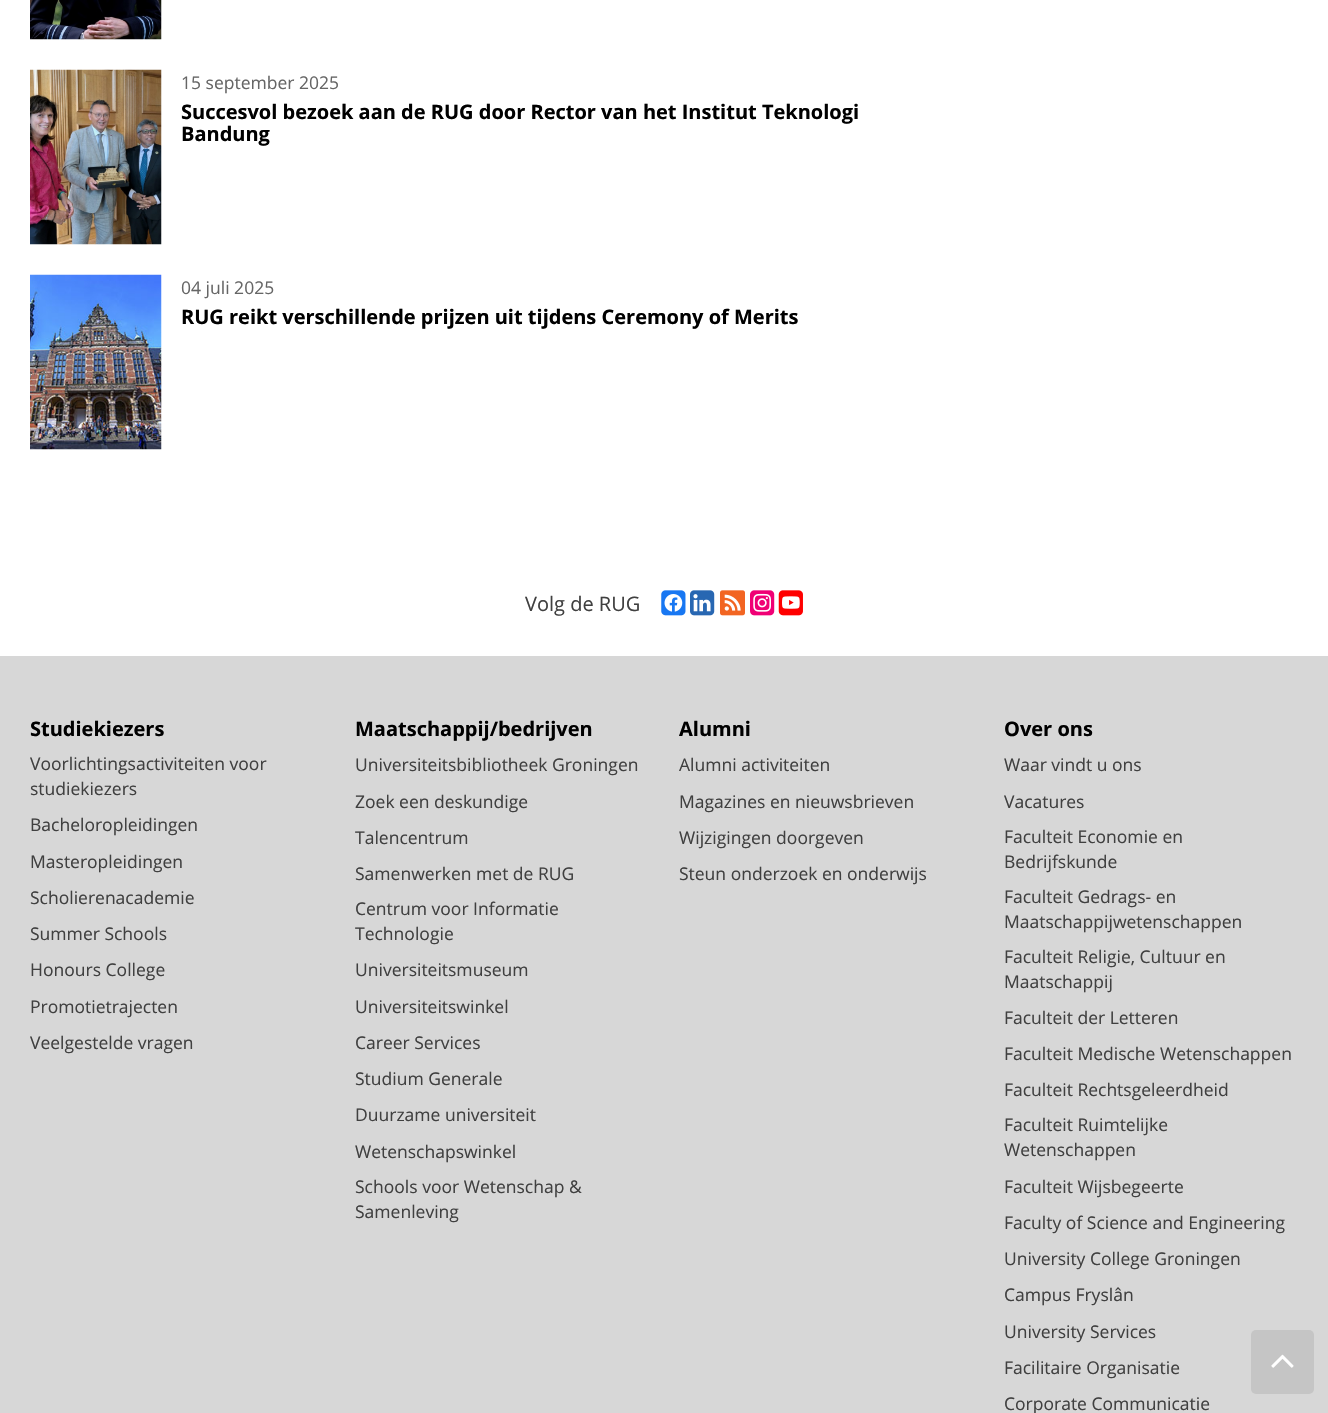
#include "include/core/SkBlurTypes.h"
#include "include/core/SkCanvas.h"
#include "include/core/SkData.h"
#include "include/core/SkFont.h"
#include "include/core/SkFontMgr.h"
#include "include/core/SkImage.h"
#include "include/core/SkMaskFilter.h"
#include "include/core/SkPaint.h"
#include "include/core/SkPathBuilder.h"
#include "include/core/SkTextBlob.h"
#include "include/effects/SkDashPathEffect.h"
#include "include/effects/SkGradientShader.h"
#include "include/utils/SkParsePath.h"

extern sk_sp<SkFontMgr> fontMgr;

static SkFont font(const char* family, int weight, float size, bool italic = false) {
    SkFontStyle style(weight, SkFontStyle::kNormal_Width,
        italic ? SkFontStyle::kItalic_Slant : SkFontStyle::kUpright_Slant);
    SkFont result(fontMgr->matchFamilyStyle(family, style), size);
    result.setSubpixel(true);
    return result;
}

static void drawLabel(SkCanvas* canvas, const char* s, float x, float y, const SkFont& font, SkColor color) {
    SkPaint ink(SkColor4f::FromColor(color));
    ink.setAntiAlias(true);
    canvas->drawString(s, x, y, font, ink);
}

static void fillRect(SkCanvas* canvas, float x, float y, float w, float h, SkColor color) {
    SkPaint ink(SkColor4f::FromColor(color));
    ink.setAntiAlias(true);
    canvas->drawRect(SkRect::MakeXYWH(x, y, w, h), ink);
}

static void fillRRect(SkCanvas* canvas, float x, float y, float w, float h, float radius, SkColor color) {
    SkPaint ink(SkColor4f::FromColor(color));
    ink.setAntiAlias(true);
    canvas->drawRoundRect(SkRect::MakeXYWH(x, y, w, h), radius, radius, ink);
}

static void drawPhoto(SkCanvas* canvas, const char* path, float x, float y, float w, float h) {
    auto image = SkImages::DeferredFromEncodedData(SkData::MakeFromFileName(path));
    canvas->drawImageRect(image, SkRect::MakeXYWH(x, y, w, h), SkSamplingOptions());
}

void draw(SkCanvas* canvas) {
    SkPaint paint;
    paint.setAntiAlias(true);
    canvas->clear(0xFFFFFFFF);
    drawPhoto(canvas, "assets/img1.png", 30, 0, 132, 40);
    drawPhoto(canvas, "assets/img2.png", 30, 69, 132, 176);
    SkFont font1 = font("Open Sans", 400, 17.5f);
    drawLabel(canvas, "15 september 2025", 181, 89, font1, 0xFF666666);
    SkFont font2 = font("Open Sans", 700, 20);
    drawLabel(canvas, "Succesvol bezoek aan de RUG door Rector van het Institut Teknologi", 181, 119, font2, 0xFF000000);
    drawLabel(canvas, "Bandung", 181, 141, font2, 0xFF000000);
    drawPhoto(canvas, "assets/img3.png", 30, 274, 132, 176);
    drawLabel(canvas, "04 juli 2025", 181, 294, font1, 0xFF666666);
    drawLabel(canvas, "RUG reikt verschillende prijzen uit tijdens Ceremony of Merits", 181, 324, font2, 0xFF000000);
    SkFont font3 = font("Open Sans", 400, 20);
    drawLabel(canvas, "Volg de RUG", 525, 611, font3, 0xFF404040);
    drawPhoto(canvas, "assets/img4.png", 661, 590, 25, 26);
    drawPhoto(canvas, "assets/img5.png", 690, 590, 25, 26);
    drawPhoto(canvas, "assets/img6.png", 720, 590, 25, 26);
    drawPhoto(canvas, "assets/img7.png", 750, 590, 25, 26);
    drawPhoto(canvas, "assets/img8.png", 778, 590, 25, 26);
    fillRect(canvas, 0, 656, 1328, 757, 0xFFD7D7D7);
    drawLabel(canvas, "Studiekiezers", 30, 736, font2, 0xFF000000);
    drawLabel(canvas, "Voorlichtingsactiviteiten voor", 30, 770, font1, 0xFF404040);
    drawLabel(canvas, "studiekiezers", 30, 795, font1, 0xFF404040);
    drawLabel(canvas, "Bacheloropleidingen", 30, 831, font1, 0xFF404040);
    drawLabel(canvas, "Masteropleidingen", 30, 868, font1, 0xFF404040);
    drawLabel(canvas, "Scholierenacademie", 30, 904, font1, 0xFF404040);
    drawLabel(canvas, "Summer Schools", 30, 940, font1, 0xFF404040);
    drawLabel(canvas, "Honours College", 30, 976, font1, 0xFF404040);
    drawLabel(canvas, "Promotietrajecten", 30, 1013, font1, 0xFF404040);
    drawLabel(canvas, "Veelgestelde vragen", 30, 1049, font1, 0xFF404040);
    drawLabel(canvas, "Maatschappij/bedrijven", 355, 736, font2, 0xFF000000);
    drawLabel(canvas, "Universiteitsbibliotheek Groningen", 355, 771, font1, 0xFF404040);
    drawLabel(canvas, "Zoek een deskundige", 355, 808, font1, 0xFF404040);
    drawLabel(canvas, "Talencentrum", 355, 844, font1, 0xFF404040);
    drawLabel(canvas, "Samenwerken met de RUG", 355, 880, font1, 0xFF404040);
    drawLabel(canvas, "Centrum voor Informatie", 355, 915, font1, 0xFF404040);
    drawLabel(canvas, "Technologie", 355, 940, font1, 0xFF404040);
    drawLabel(canvas, "Universiteitsmuseum", 355, 976, font1, 0xFF404040);
    drawLabel(canvas, "Universiteitswinkel", 355, 1013, font1, 0xFF404040);
    drawLabel(canvas, "Career Services", 355, 1049, font1, 0xFF404040);
    drawLabel(canvas, "Studium Generale", 355, 1085, font1, 0xFF404040);
    drawLabel(canvas, "Duurzame universiteit", 355, 1121, font1, 0xFF404040);
    drawLabel(canvas, "Wetenschapswinkel", 355, 1158, font1, 0xFF404040);
    drawLabel(canvas, "Schools voor Wetenschap &", 355, 1193, font1, 0xFF404040);
    drawLabel(canvas, "Samenleving", 355, 1218, font1, 0xFF404040);
    drawLabel(canvas, "Alumni", 679, 736, font2, 0xFF000000);
    drawLabel(canvas, "Alumni activiteiten", 679, 771, font1, 0xFF404040);
    drawLabel(canvas, "Magazines en nieuwsbrieven", 679, 808, font1, 0xFF404040);
    drawLabel(canvas, "Wijzigingen doorgeven", 679, 844, font1, 0xFF404040);
    drawLabel(canvas, "Steun onderzoek en onderwijs", 679, 880, font1, 0xFF404040);
    drawLabel(canvas, "Over ons", 1004, 736, font2, 0xFF000000);
    drawLabel(canvas, "Waar vindt u ons", 1004, 771, font1, 0xFF404040);
    drawLabel(canvas, "Vacatures", 1004, 808, font1, 0xFF404040);
    drawLabel(canvas, "Faculteit Economie en", 1004, 843, font1, 0xFF404040);
    drawLabel(canvas, "Bedrijfskunde", 1004, 868, font1, 0xFF404040);
    drawLabel(canvas, "Faculteit Gedrags- en", 1004, 903, font1, 0xFF404040);
    drawLabel(canvas, "Maatschappijwetenschappen", 1004, 928, font1, 0xFF404040);
    drawLabel(canvas, "Faculteit Religie, Cultuur en", 1004, 963, font1, 0xFF404040);
    drawLabel(canvas, "Maatschappij", 1004, 988, font1, 0xFF404040);
    drawLabel(canvas, "Faculteit der Letteren", 1004, 1024, font1, 0xFF404040);
    drawLabel(canvas, "Faculteit Medische Wetenschappen", 1004, 1060, font1, 0xFF404040);
    drawLabel(canvas, "Faculteit Rechtsgeleerdheid", 1004, 1096, font1, 0xFF404040);
    drawLabel(canvas, "Faculteit Ruimtelijke", 1004, 1131, font1, 0xFF404040);
    drawLabel(canvas, "Wetenschappen", 1004, 1156, font1, 0xFF404040);
    drawLabel(canvas, "Faculteit Wijsbegeerte", 1004, 1193, font1, 0xFF404040);
    drawLabel(canvas, "Faculty of Science and Engineering", 1004, 1229, font1, 0xFF404040);
    drawLabel(canvas, "University College Groningen", 1004, 1265, font1, 0xFF404040);
    drawLabel(canvas, "Campus Fryslân", 1004, 1301, font1, 0xFF404040);
    drawLabel(canvas, "University Services", 1004, 1338, font1, 0xFF404040);
    drawLabel(canvas, "Facilitaire Organisatie", 1004, 1374, font1, 0xFF404040);
    drawLabel(canvas, "Corporate Communicatie", 1004, 1410, font1, 0xFF404040);
    fillRRect(canvas, 1251, 1330, 63, 64, 5, 0xFFC5C5C5);
    drawPhoto(canvas, "assets/img9.png", 1271, 1354, 23, 14);
}
